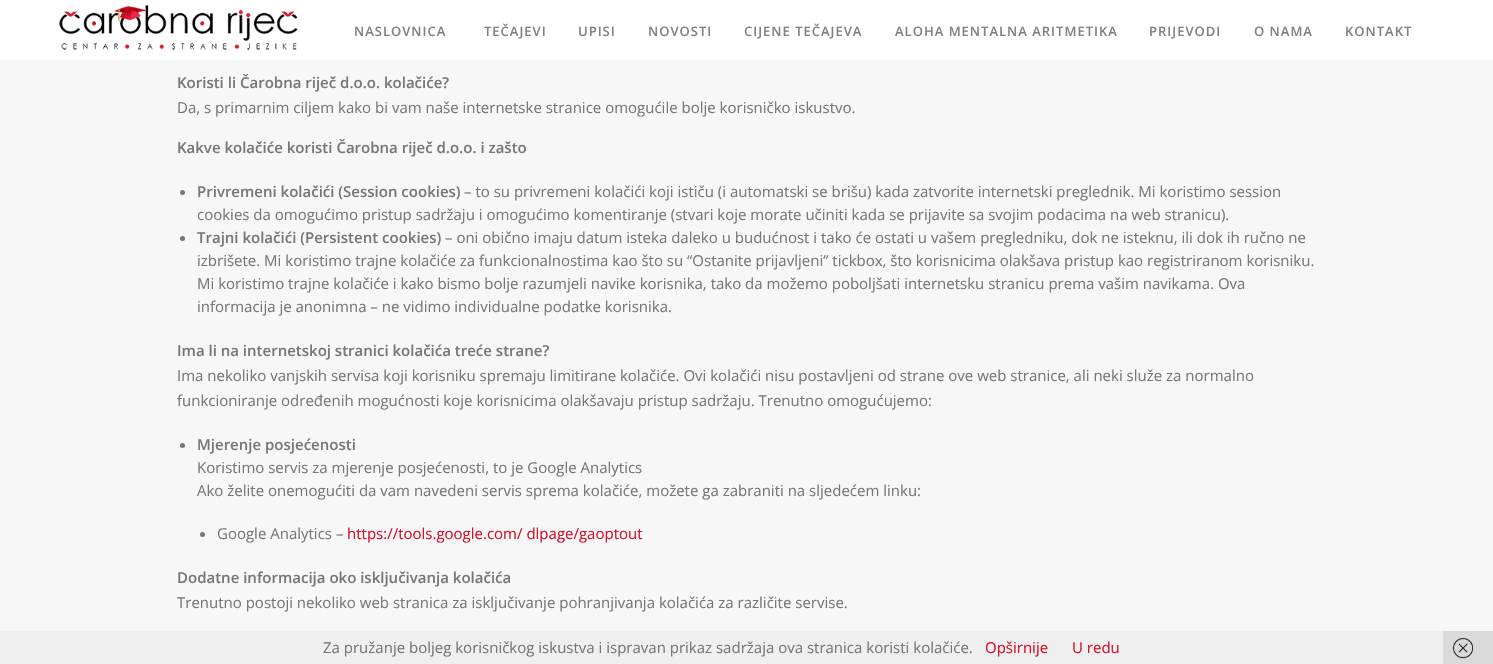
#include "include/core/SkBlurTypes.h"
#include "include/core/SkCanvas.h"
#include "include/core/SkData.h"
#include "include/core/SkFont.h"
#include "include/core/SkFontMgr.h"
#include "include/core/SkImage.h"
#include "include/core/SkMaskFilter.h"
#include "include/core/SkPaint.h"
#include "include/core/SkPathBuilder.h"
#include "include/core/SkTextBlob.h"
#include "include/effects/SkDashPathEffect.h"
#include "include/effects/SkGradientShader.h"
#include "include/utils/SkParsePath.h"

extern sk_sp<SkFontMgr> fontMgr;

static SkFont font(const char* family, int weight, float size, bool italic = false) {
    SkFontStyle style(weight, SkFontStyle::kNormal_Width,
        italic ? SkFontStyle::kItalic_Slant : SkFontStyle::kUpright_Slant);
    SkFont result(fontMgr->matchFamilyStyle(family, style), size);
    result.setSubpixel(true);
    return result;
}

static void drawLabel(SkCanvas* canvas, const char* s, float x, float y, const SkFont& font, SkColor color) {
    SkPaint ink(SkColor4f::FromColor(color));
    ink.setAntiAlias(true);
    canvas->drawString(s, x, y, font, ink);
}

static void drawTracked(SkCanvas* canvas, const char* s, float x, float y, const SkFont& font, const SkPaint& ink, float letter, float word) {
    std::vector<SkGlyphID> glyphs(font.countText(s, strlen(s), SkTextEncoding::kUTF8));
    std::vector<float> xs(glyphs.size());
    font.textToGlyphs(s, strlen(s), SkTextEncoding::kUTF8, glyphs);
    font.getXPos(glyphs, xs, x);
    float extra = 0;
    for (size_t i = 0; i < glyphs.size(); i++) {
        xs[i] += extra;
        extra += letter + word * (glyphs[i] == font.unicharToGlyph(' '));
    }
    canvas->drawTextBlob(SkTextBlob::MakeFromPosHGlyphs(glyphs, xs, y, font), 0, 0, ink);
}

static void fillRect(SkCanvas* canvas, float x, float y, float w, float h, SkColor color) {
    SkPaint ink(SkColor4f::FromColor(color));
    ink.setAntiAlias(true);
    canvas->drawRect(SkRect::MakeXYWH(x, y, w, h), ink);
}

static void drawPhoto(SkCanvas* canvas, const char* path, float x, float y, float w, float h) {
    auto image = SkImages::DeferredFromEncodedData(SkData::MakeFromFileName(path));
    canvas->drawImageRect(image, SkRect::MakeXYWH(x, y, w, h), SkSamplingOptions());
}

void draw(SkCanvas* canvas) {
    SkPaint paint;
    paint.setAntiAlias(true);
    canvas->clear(0xFFF7F7F7);
    fillRect(canvas, 0, 0, 1493, 60, 0xFFFFFFFF);
    fillRect(canvas, 0, 631, 1443, 33, 0xFFEFEFEF);
    drawPhoto(canvas, "assets/img1.png", 58, 5, 240, 45);
    SkFont font1 = font("Open Sans", 600, 13);
    paint.setColor(0xFF818181);
    drawTracked(canvas, "NASLOVNICA", 354, 36, font1, paint, 1, 0);
    drawTracked(canvas, "TEČAJEVI", 484, 36, font1, paint, 1, 0);
    drawTracked(canvas, "UPISI", 578, 36, font1, paint, 1, 0);
    drawTracked(canvas, "NOVOSTI", 648, 36, font1, paint, 1, 0);
    drawTracked(canvas, "CIJENE TEČAJEVA", 744, 36, font1, paint, 1, 0);
    drawTracked(canvas, "ALOHA MENTALNA ARITMETIKA", 895, 36, font1, paint, 1, 0);
    drawTracked(canvas, "PRIJEVODI", 1149, 36, font1, paint, 1, 0);
    drawTracked(canvas, "O NAMA", 1254, 36, font1, paint, 1, 0);
    drawTracked(canvas, "KONTAKT", 1345, 36, font1, paint, 1, 0);
    SkFont font2 = font("Open Sans", 600, 15);
    drawLabel(canvas, "Koristi li Čarobna riječ d.o.o. kolačiće?", 177, 88, font2, 0xFF777777);
    SkFont font3 = font("Open Sans", 400, 15);
    drawLabel(canvas, "Da, s primarnim ciljem kako bi vam naše internetske stranice omogućile bolje korisničko iskustvo.", 177, 113, font3, 0xFF777777);
    drawLabel(canvas, "Kakve kolačiće koristi Čarobna riječ d.o.o. i zašto", 177, 153, font2, 0xFF777777);
    paint.setColor(0xFF777777);
    canvas->drawCircle(182.5f, 192.5f, 2.5f, paint);
    drawLabel(canvas, "Privremeni kolačići (Session cookies)", 197, 197, font2, 0xFF777777);
    drawLabel(canvas, "– to su privremeni kolačići koji ističu (i automatski se brišu) kada zatvorite internetski preglednik. Mi koristimo session", 464, 197, font3, 0xFF777777);
    drawLabel(canvas, "cookies da omogućimo pristup sadržaju i omogućimo komentiranje (stvari koje morate učiniti kada se prijavite sa svojim podacima na web stranicu).", 197, 220, font3, 0xFF777777);
    canvas->drawCircle(182.5f, 238.5f, 2.5f, paint);
    drawLabel(canvas, "Trajni kolačići (Persistent cookies)", 197, 243, font2, 0xFF777777);
    drawLabel(canvas, "– oni obično imaju datum isteka daleko u budućnost i tako će ostati u vašem pregledniku, dok ne isteknu, ili dok ih ručno ne", 445, 243, font3, 0xFF777777);
    drawLabel(canvas, "izbrišete. Mi koristimo trajne kolačiće za funkcionalnostima kao što su “Ostanite prijavljeni” tickbox, što korisnicima olakšava pristup kao registriranom korisniku.", 197, 266, font3, 0xFF777777);
    drawLabel(canvas, "Mi koristimo trajne kolačiće i kako bismo bolje razumjeli navike korisnika, tako da možemo poboljšati internetsku stranicu prema vašim navikama. Ova", 197, 289, font3, 0xFF777777);
    drawLabel(canvas, "informacija je anonimna – ne vidimo individualne podatke korisnika.", 197, 312, font3, 0xFF777777);
    drawLabel(canvas, "Ima li na internetskoj stranici kolačića treće strane?", 177, 356, font2, 0xFF777777);
    drawLabel(canvas, "Ima nekoliko vanjskih servisa koji korisniku spremaju limitirane kolačiće. Ovi kolačići nisu postavljeni od strane ove web stranice, ali neki služe za normalno", 177, 381, font3, 0xFF777777);
    drawLabel(canvas, "funkcioniranje određenih mogućnosti koje korisnicima olakšavaju pristup sadržaju. Trenutno omogućujemo:", 177, 406, font3, 0xFF777777);
    canvas->drawCircle(182.5f, 445.5f, 2.5f, paint);
    drawLabel(canvas, "Mjerenje posjećenosti", 197, 450, font2, 0xFF777777);
    drawLabel(canvas, "Koristimo servis za mjerenje posjećenosti, to je Google Analytics", 197, 473, font3, 0xFF777777);
    drawLabel(canvas, "Ako želite onemogućiti da vam navedeni servis sprema kolačiće, možete ga zabraniti na sljedećem linku:", 197, 496, font3, 0xFF777777);
    canvas->drawCircle(202.5f, 534.5f, 2.5f, paint);
    drawLabel(canvas, "Google Analytics –", 217, 539, font3, 0xFF777777);
    drawLabel(canvas, "https://tools.google.com/ dlpage/gaoptout", 347, 539, font3, 0xFFD8102A);
    drawLabel(canvas, "Dodatne informacija oko isključivanja kolačića", 177, 583, font2, 0xFF777777);
    drawLabel(canvas, "Trenutno postoji nekoliko web stranica za isključivanje pohranjivanja kolačića za različite servise.", 177, 608, font3, 0xFF777777);
    drawLabel(canvas, "Za pružanje boljeg korisničkog iskustva i ispravan prikaz sadržaja ova stranica koristi kolačiće.", 323, 653, font3, 0xFF777777);
    drawLabel(canvas, "Opširnije", 985, 653, font3, 0xFFD8102A);
    drawLabel(canvas, "U redu", 1072, 653, font3, 0xFFD8102A);
    fillRect(canvas, 1443, 631, 50, 33, 0xFFDADADA);
    drawPhoto(canvas, "assets/img2.png", 1453, 638, 20, 21);
}
